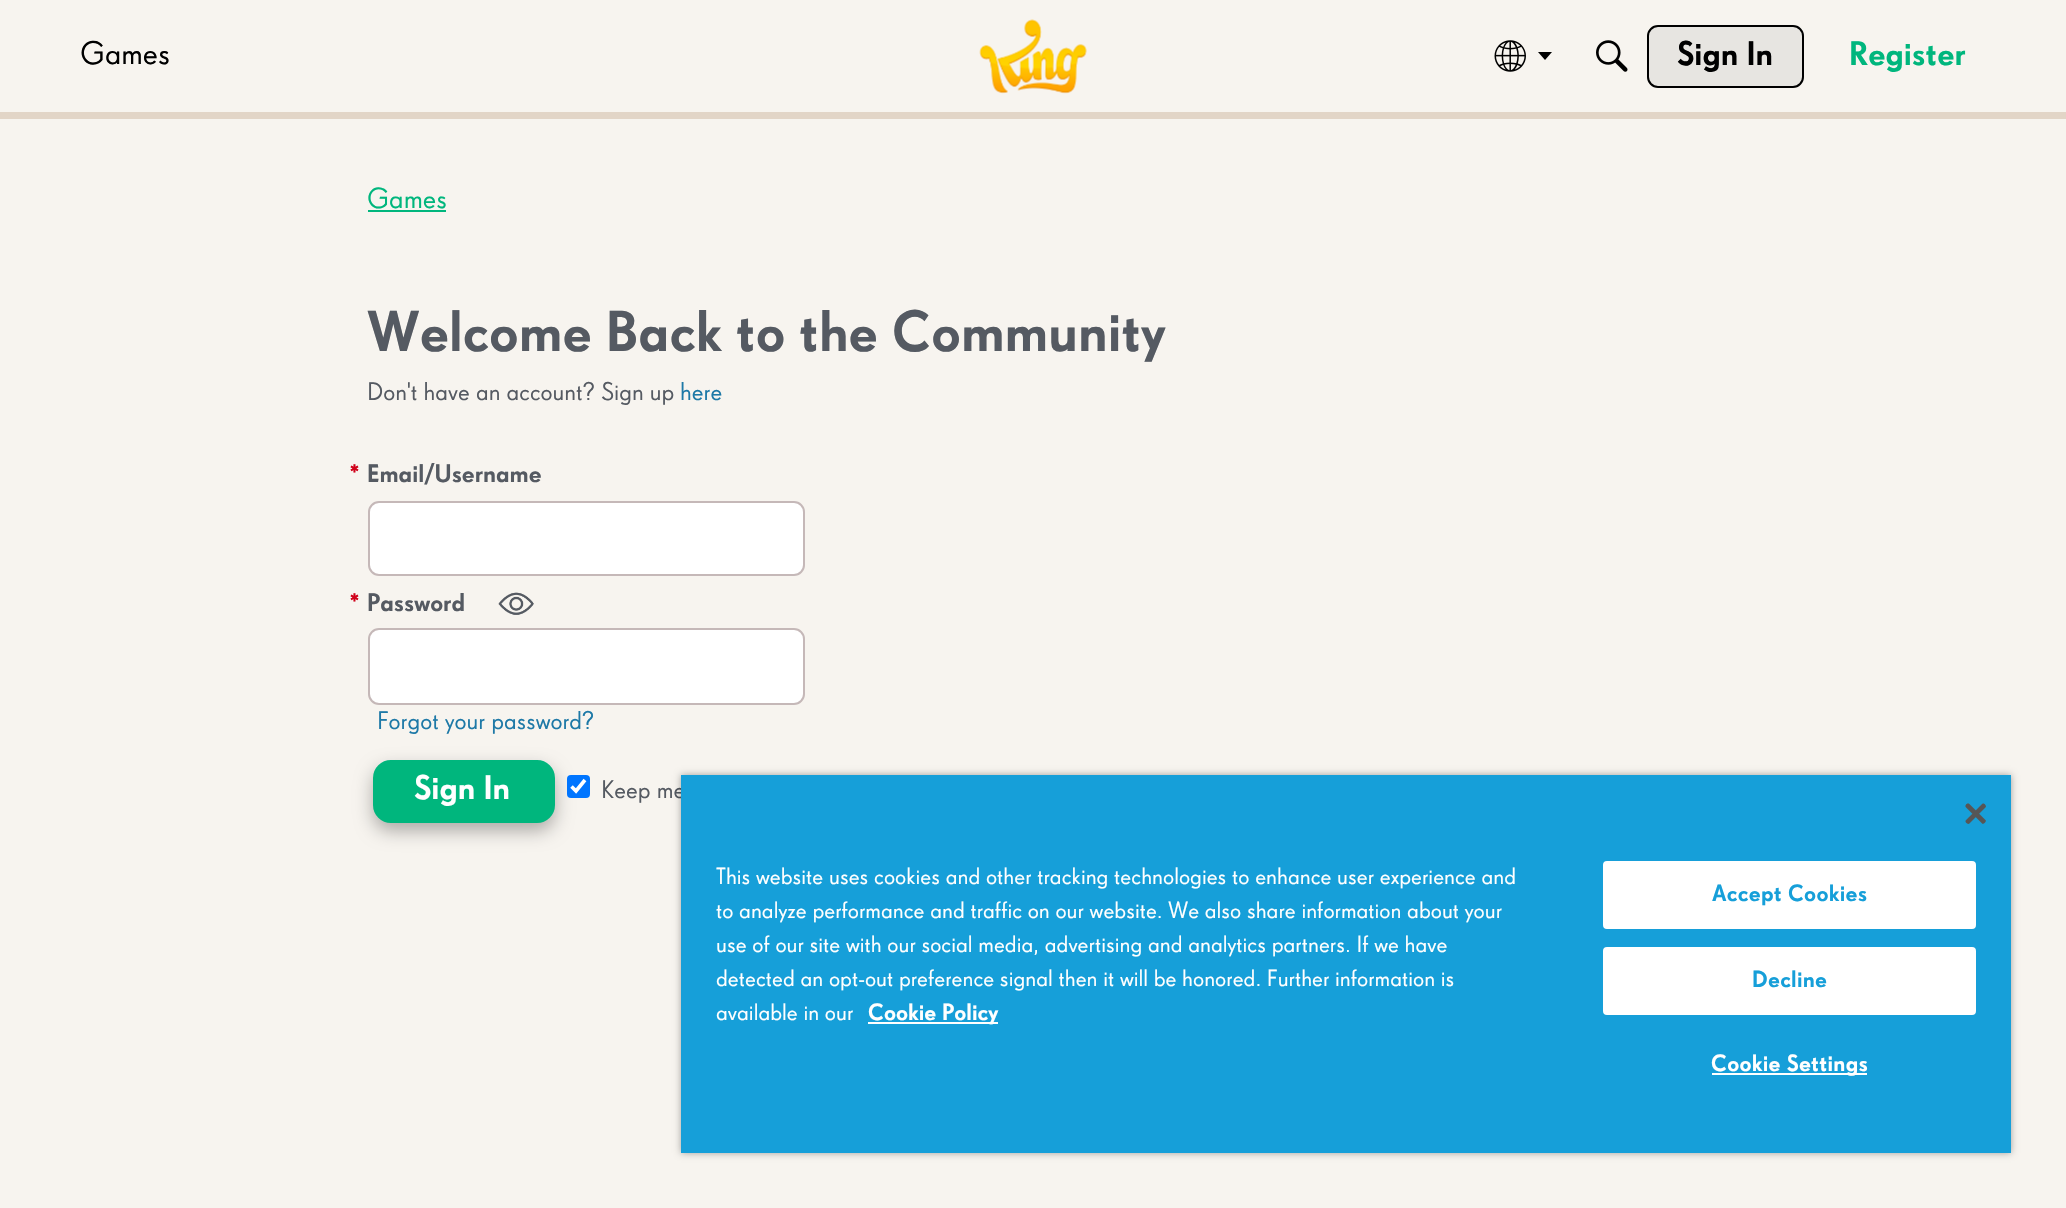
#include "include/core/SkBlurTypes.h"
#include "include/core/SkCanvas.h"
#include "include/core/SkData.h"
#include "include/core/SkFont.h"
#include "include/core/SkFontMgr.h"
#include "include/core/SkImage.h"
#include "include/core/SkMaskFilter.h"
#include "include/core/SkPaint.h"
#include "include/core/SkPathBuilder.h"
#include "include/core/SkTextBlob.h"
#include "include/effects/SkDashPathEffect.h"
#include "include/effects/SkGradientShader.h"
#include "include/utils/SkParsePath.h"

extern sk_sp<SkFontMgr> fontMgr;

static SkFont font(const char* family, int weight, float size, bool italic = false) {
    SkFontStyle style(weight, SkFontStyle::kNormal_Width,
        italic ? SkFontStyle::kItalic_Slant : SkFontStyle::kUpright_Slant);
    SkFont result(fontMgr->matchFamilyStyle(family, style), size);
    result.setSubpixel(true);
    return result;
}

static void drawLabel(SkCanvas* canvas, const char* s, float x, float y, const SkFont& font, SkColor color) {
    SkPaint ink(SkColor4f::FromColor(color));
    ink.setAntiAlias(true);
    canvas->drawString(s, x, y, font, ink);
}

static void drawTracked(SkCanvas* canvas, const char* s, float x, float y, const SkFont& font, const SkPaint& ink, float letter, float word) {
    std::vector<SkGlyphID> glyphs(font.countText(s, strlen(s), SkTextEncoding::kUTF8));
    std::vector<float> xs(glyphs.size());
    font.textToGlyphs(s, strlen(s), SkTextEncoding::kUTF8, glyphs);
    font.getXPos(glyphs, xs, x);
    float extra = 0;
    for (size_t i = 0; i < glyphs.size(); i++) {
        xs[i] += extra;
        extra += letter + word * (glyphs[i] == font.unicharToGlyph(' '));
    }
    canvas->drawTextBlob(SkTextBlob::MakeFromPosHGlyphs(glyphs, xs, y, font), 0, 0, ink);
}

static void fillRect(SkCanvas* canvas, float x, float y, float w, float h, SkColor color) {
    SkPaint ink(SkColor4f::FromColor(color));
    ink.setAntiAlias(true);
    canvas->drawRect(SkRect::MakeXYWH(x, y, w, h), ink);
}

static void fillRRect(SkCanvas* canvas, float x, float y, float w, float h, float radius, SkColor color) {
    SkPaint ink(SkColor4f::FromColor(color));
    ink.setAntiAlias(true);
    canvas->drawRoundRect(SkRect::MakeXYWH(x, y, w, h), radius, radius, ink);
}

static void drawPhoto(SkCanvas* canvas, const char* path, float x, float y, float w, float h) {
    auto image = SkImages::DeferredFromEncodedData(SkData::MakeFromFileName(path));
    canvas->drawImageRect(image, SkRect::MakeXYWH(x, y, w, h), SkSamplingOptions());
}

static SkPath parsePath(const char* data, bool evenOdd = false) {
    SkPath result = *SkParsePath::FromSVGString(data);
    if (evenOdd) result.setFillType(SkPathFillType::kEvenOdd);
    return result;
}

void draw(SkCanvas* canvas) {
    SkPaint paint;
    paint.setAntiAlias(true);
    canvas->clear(0xFFF7F4EF);
    fillRect(canvas, 0, 112, 2066, 7, 0xFFE2D5C7);
    SkFont font1 = font("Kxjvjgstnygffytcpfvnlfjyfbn", 400, 31.5f);
    drawLabel(canvas, "Games", 80, 64, font1, 0xFF000000);
    drawPhoto(canvas, "assets/img1.png", 979, 19, 108, 75);
    drawPhoto(canvas, "assets/img2.png", 1494, 40, 32, 32);
    paint.setColor(0xFF000000);
    canvas->drawPath(parsePath("M1538 52H1552L1545 60Z"), paint);
    drawPhoto(canvas, "assets/img3.png", 1596, 40, 32, 32);
    paint.setColor(0xFFE7E5E1);
    canvas->drawRoundRect(SkRect::MakeXYWH(1648, 26, 155, 61), 10, 10, paint);
    paint.setStroke(true);
    paint.setStrokeWidth(2);
    paint.setColor(0xFF000000);
    canvas->drawRoundRect(SkRect::MakeXYWH(1648, 26, 155, 61), 10, 10, paint);
    SkFont font2 = font("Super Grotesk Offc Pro", 500, 33);
    drawLabel(canvas, "Sign In", 1677, 65, font2, 0xFF000000);
    drawLabel(canvas, "Register", 1849, 65, font2, 0xFF00B67D);
    SkFont font3 = font("Kxjvjgstnygffytcpfvnlfjyfbn", 400, 28);
    drawLabel(canvas, "Games", 367, 208, font3, 0xFF00B67D);
    fillRect(canvas, 368, 210, 78, 2, 0xFF00B67D);
    SkFont font4 = font("Super Grotesk Offc Pro", 500, 56);
    drawLabel(canvas, "Welcome Back to the Community", 367, 351, font4, 0xFF555A62);
    SkFont font5 = font("Kxjvjgstnygffytcpfvnlfjyfbn", 400, 24.5f);
    drawLabel(canvas, "Don't have an account? Sign up", 367, 400, font5, 0xFF555A62);
    drawLabel(canvas, "here", 680, 400, font5, 0xFF1E79A7);
    SkFont font6 = font("Super Grotesk Offc Pro", 500, 24.5f);
    drawLabel(canvas, "*", 349, 482, font6, 0xFFD0021B);
    drawLabel(canvas, "Email/Username", 367, 482, font6, 0xFF555A62);
    paint.setStroke(false);
    paint.setColor(0xFFFFFFFF);
    canvas->drawRoundRect(SkRect::MakeXYWH(369, 502, 435, 73), 10, 10, paint);
    paint.setStroke(true);
    paint.setColor(0xFFC5B8B8);
    canvas->drawRoundRect(SkRect::MakeXYWH(369, 502, 435, 73), 10, 10, paint);
    drawLabel(canvas, "*", 349, 611, font6, 0xFFD0021B);
    drawLabel(canvas, "Password", 367, 611, font6, 0xFF555A62);
    drawPhoto(canvas, "assets/img4.png", 498, 592, 36, 23);
    paint.setStroke(false);
    paint.setColor(0xFFFFFFFF);
    canvas->drawRoundRect(SkRect::MakeXYWH(369, 629, 435, 75), 10, 10, paint);
    paint.setStroke(true);
    paint.setColor(0xFFC5B8B8);
    canvas->drawRoundRect(SkRect::MakeXYWH(369, 629, 435, 75), 10, 10, paint);
    drawLabel(canvas, "Forgot your password?", 377, 729, font5, 0xFF1E79A7);
    paint.setStroke(false);
    paint.setColor(0x4D000000);
    paint.setMaskFilter(SkMaskFilter::MakeBlur(kNormal_SkBlurStyle, 9));
    canvas->drawRoundRect(SkRect::MakeXYWH(373, 768, 182, 63), 18, 18, paint);
    paint.setMaskFilter(nullptr);
    paint.setColor(0xFF00B67D);
    canvas->drawRoundRect(SkRect::MakeXYWH(374, 761, 180, 61), 17, 17, paint);
    paint.setStroke(true);
    canvas->drawRoundRect(SkRect::MakeXYWH(374, 761, 180, 61), 17, 17, paint);
    drawLabel(canvas, "Sign In", 414, 799, font2, 0xFFFFFFFF);
    fillRRect(canvas, 567, 775, 23, 23, 4, 0xFF0075FF);
    paint.setStrokeWidth(3.6f);
    paint.setColor(0xFFFFFFFF);
    canvas->drawPath(parsePath("M571.5 786.5L576 791L585 780"), paint);
    drawLabel(canvas, "Keep me", 601, 798, font5, 0xFF555A62);
    paint.setStroke(false);
    paint.setColor(0x59000000);
    paint.setMaskFilter(SkMaskFilter::MakeBlur(kNormal_SkBlurStyle, 3.5f));
    canvas->drawRect(SkRect::MakeXYWH(681, 775, 1330, 378), paint);
    paint.setMaskFilter(nullptr);
    fillRect(canvas, 681, 775, 1330, 378, 0xFF169FD9);
    drawPhoto(canvas, "assets/img5.png", 1965, 803, 21, 21);
    SkFont font7 = font("Kxjvjgstnygffytcpfvnlfjyfbn", 400, 22.75f);
    drawLabel(canvas, "This website uses cookies and other tracking technologies to enhance user experience and", 716, 884, font7, 0xFFFFFFFF);
    drawLabel(canvas, "to analyze performance and traffic on our website. We also share information about your", 716, 918, font7, 0xFFFFFFFF);
    drawLabel(canvas, "use of our site with our social media, advertising and analytics partners. If we have", 716, 952, font7, 0xFFFFFFFF);
    drawLabel(canvas, "detected an opt-out preference signal then it will be honored. Further information is", 716, 986, font7, 0xFFFFFFFF);
    drawLabel(canvas, "available in our", 716, 1020, font7, 0xFFFFFFFF);
    fillRect(canvas, 868, 1022, 130, 2, 0xFFFFFFFF);
    SkFont font8 = font("Super Grotesk Offc Pro", 500, 22.75f);
    drawLabel(canvas, "Cookie Policy", 868, 1020, font8, 0xFFFFFFFF);
    paint.setColor(0xFFFFFFFF);
    canvas->drawRoundRect(SkRect::MakeXYWH(1604, 862, 371, 66), 3, 3, paint);
    paint.setStroke(true);
    paint.setStrokeWidth(2);
    canvas->drawRoundRect(SkRect::MakeXYWH(1604, 862, 371, 66), 3, 3, paint);
    paint.setStroke(false);
    paint.setColor(0xFF169FD9);
    drawTracked(canvas, "Accept Cookies", 1712, 901, font8, paint, 0.25f, 0);
    paint.setColor(0xFFFFFFFF);
    canvas->drawRoundRect(SkRect::MakeXYWH(1604, 948, 371, 66), 3, 3, paint);
    paint.setStroke(true);
    canvas->drawRoundRect(SkRect::MakeXYWH(1604, 948, 371, 66), 3, 3, paint);
    paint.setStroke(false);
    paint.setColor(0xFF169FD9);
    drawTracked(canvas, "Decline", 1752, 987, font8, paint, 0.25f, 0);
    fillRect(canvas, 1712, 1073, 155, 2, 0xFFFFFFFF);
    paint.setColor(0xFFFFFFFF);
    drawTracked(canvas, "Cookie Settings", 1711, 1071, font8, paint, 0.25f, 0);
}
